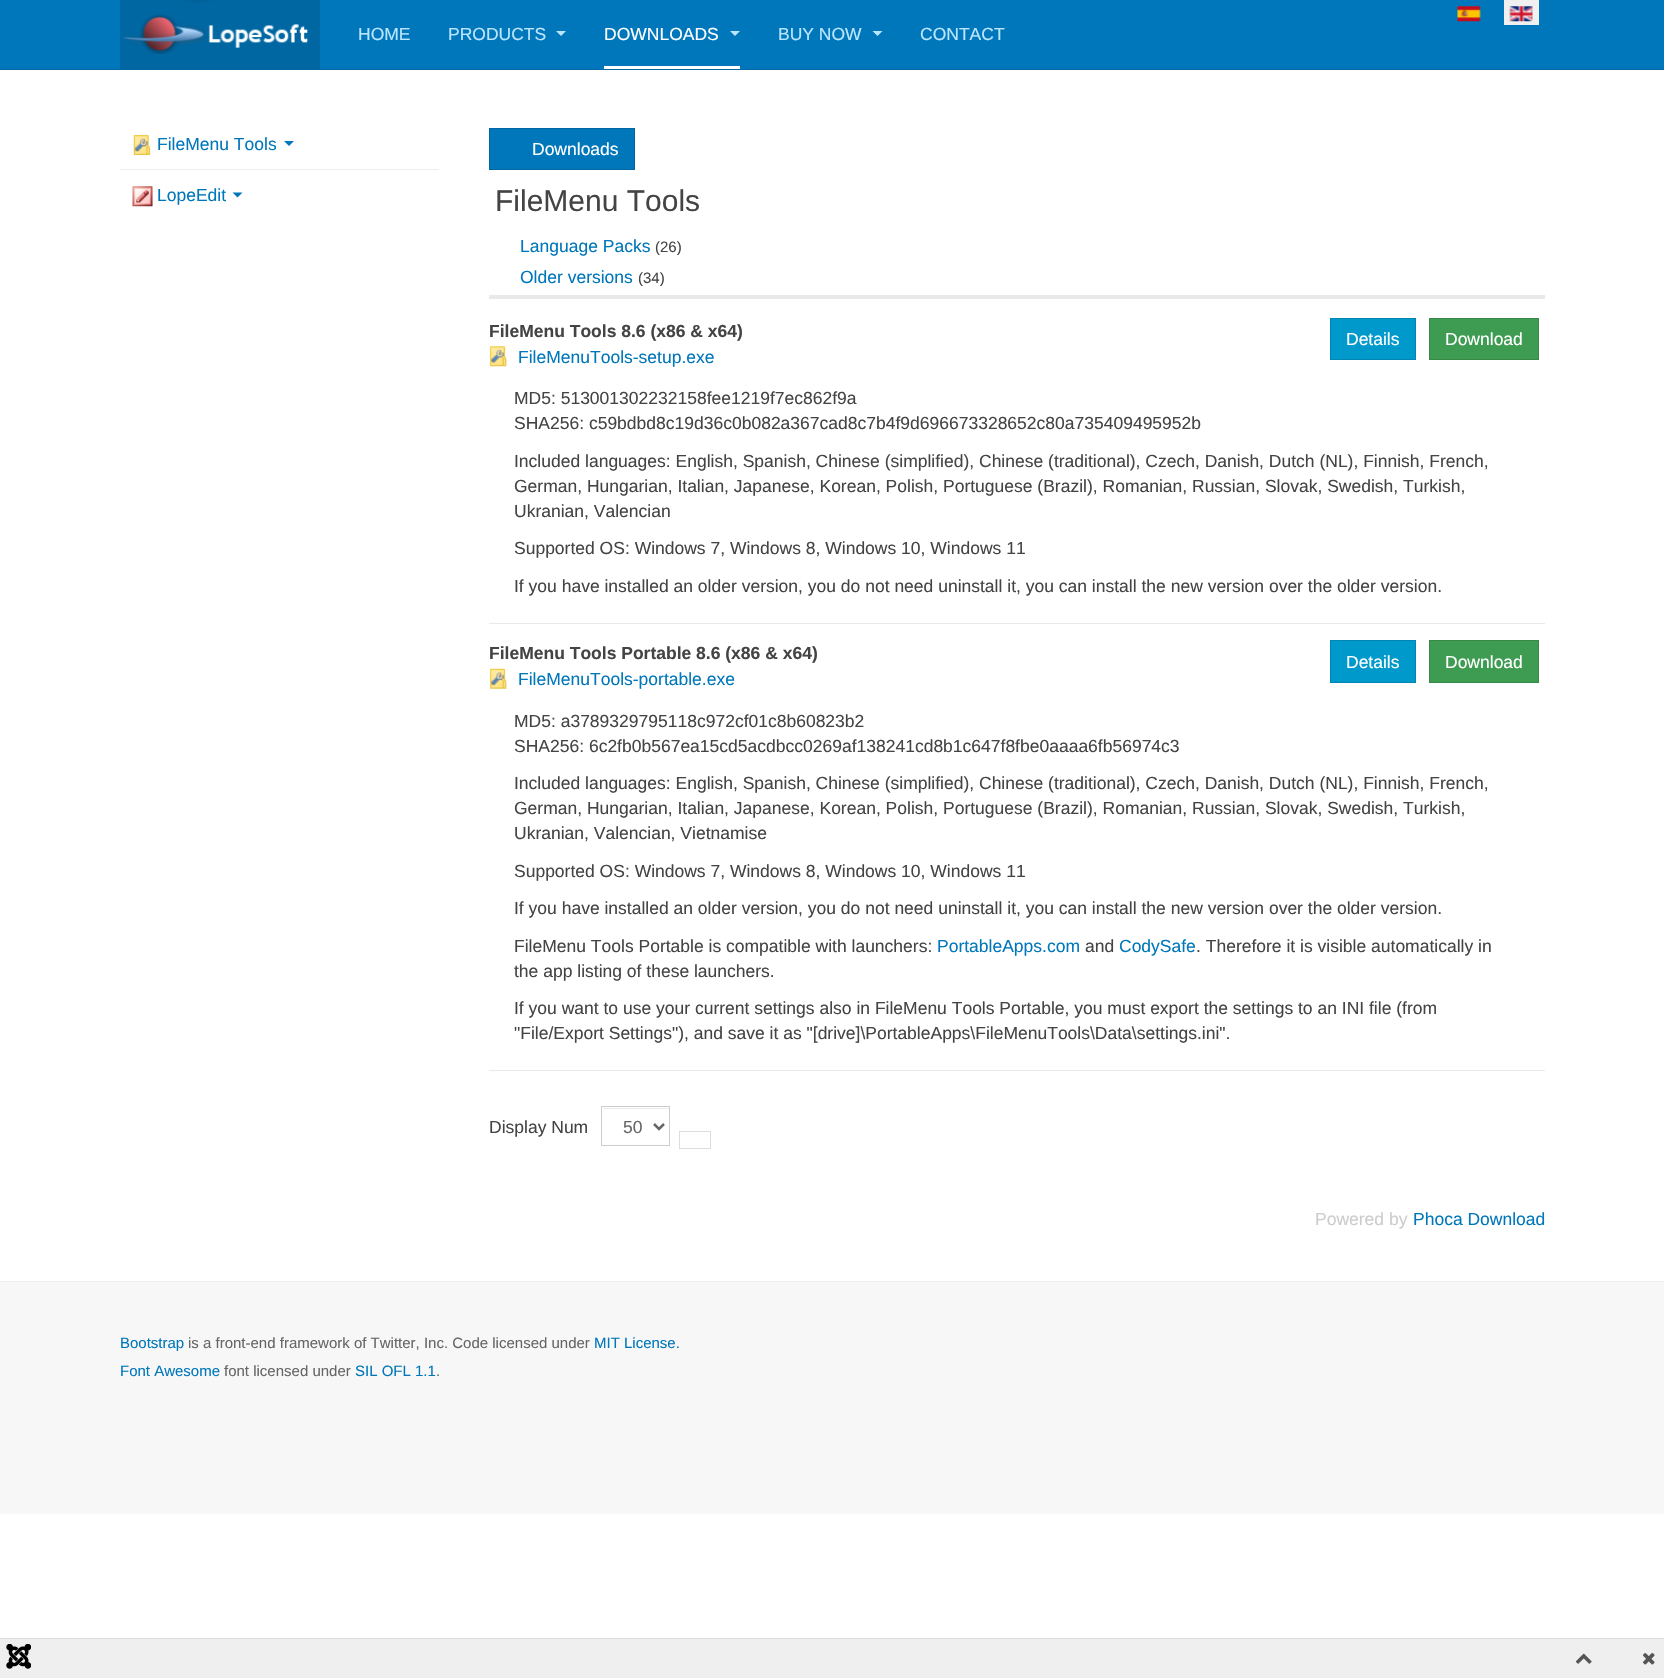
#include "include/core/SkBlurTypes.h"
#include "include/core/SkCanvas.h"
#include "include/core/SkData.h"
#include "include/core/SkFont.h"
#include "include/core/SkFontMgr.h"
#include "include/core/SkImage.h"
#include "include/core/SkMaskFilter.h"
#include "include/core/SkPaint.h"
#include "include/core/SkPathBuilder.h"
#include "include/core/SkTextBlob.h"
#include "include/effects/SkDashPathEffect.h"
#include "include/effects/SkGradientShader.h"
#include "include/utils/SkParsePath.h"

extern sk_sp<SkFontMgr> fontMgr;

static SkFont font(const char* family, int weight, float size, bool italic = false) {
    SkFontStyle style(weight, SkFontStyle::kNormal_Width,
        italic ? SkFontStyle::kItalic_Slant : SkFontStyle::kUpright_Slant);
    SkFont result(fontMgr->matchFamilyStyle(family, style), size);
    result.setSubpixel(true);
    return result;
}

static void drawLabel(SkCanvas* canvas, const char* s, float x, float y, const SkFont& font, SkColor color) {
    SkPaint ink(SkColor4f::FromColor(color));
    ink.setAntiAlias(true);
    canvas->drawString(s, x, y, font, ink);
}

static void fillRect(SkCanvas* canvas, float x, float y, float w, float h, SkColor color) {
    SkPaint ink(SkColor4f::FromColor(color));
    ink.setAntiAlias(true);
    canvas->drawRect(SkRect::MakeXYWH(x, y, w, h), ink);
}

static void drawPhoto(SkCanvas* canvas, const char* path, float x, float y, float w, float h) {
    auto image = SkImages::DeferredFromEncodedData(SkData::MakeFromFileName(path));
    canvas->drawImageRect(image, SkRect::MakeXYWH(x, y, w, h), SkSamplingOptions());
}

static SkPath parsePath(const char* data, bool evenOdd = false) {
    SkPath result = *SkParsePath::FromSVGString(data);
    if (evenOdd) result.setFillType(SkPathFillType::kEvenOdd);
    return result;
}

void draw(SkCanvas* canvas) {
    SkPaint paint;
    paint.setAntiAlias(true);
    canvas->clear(0xFFFFFFFF);
    fillRect(canvas, 0, 0, 1664, 69, 0xFF0077BB);
    fillRect(canvas, 0, 69, 1664, 1, 0xFF0067A2);
    fillRect(canvas, 120, 0, 200, 69, 0xFF0067A2);
    drawPhoto(canvas, "assets/img1.png", 122, 0, 186, 54);
    drawPhoto(canvas, "assets/img2.png", 1457, 6, 24, 16);
    fillRect(canvas, 1504, 0, 35, 25, 0xFFF0F0F0);
    drawPhoto(canvas, "assets/img3.png", 1509, 6, 24, 16);
    SkFont font1 = font("Liberation Sans", 400, 17.5f);
    drawLabel(canvas, "HOME", 358, 40, font1, 0xFFBBE6FF);
    drawLabel(canvas, "PRODUCTS", 448, 40, font1, 0xFFBBE6FF);
    paint.setColor(0xFFBBE6FF);
    canvas->drawPath(parsePath("M556 31H566L561 36Z"), paint);
    fillRect(canvas, 604, 66, 136, 3, 0xFFFFFFFF);
    drawLabel(canvas, "DOWNLOADS", 604, 40, font1, 0xFFFFFFFF);
    canvas->drawPath(parsePath("M730 31H740L735 36Z"), paint);
    drawLabel(canvas, "BUY NOW", 778, 40, font1, 0xFFBBE6FF);
    canvas->drawPath(parsePath("M872.5 31H882.5L877.5 36Z"), paint);
    drawLabel(canvas, "CONTACT", 920, 40, font1, 0xFFBBE6FF);
    drawPhoto(canvas, "assets/img4.png", 133, 135, 18, 20);
    drawLabel(canvas, "FileMenu Tools", 157, 150, font1, 0xFF0077BB);
    paint.setColor(0xFF0077BB);
    canvas->drawPath(parsePath("M284 141H294L289 146Z"), paint);
    fillRect(canvas, 120, 169, 319, 1, 0xFFEEEEEE);
    drawPhoto(canvas, "assets/img5.png", 132, 186, 21, 21);
    drawLabel(canvas, "LopeEdit", 157, 201, font1, 0xFF0077BB);
    canvas->drawPath(parsePath("M232.5 192.5H242.5L237.5 197.5Z"), paint);
    canvas->drawRect(SkRect::MakeXYWH(489.5f, 128.5f, 145, 41), paint);
    paint.setStroke(true);
    paint.setStrokeWidth(1);
    paint.setColor(0xFF0067A2);
    canvas->drawRect(SkRect::MakeXYWH(489.5f, 128.5f, 145, 41), paint);
    drawLabel(canvas, "Downloads", 532, 155, font1, 0xFFFFFFFF);
    SkFont font2 = font("Liberation Sans", 400, 30);
    drawLabel(canvas, "FileMenu Tools", 495, 211, font2, 0xFF444444);
    drawLabel(canvas, "Language Packs", 520, 252, font1, 0xFF0077BB);
    SkFont font3 = font("Liberation Sans", 400, 15);
    drawLabel(canvas, "(26)", 655, 252, font3, 0xFF444444);
    drawLabel(canvas, "Older versions", 520, 283, font1, 0xFF0077BB);
    drawLabel(canvas, "(34)", 638, 283, font3, 0xFF444444);
    fillRect(canvas, 489, 295, 1056, 4, 0xFFE9E9E9);
    SkFont font4 = font("Liberation Sans", 700, 17.5f);
    drawLabel(canvas, "FileMenu Tools 8.6 (x86 & x64)", 489, 337, font4, 0xFF444444);
    drawPhoto(canvas, "assets/img6.png", 489, 346, 18, 21);
    drawLabel(canvas, "FileMenuTools-setup.exe", 518, 363, font1, 0xFF0077BB);
    paint.setStroke(false);
    paint.setColor(0xFF0099CC);
    canvas->drawRect(SkRect::MakeXYWH(1330.5f, 318.5f, 85, 41), paint);
    paint.setStroke(true);
    paint.setColor(0xFF0086B3);
    canvas->drawRect(SkRect::MakeXYWH(1330.5f, 318.5f, 85, 41), paint);
    drawLabel(canvas, "Details", 1346, 345, font1, 0xFFFFFFFF);
    paint.setStroke(false);
    paint.setColor(0xFF3E9B52);
    canvas->drawRect(SkRect::MakeXYWH(1429.5f, 318.5f, 109, 41), paint);
    paint.setStroke(true);
    paint.setColor(0xFF378948);
    canvas->drawRect(SkRect::MakeXYWH(1429.5f, 318.5f, 109, 41), paint);
    drawLabel(canvas, "Download", 1445, 345, font1, 0xFFFFFFFF);
    fillRect(canvas, 489, 623, 1056, 1, 0xFFE9E9E9);
    drawLabel(canvas, "MD5: 513001302232158fee1219f7ec862f9a", 514, 404, font1, 0xFF444444);
    drawLabel(canvas, "SHA256: c59bdbd8c19d36c0b082a367cad8c7b4f9d696673328652c80a735409495952b", 514, 429, font1, 0xFF444444);
    drawLabel(canvas, "Included languages: English, Spanish, Chinese (simplified), Chinese (traditional), Czech, Danish, Dutch (NL), Finnish, French,", 514, 467, font1, 0xFF444444);
    drawLabel(canvas, "German, Hungarian, Italian, Japanese, Korean, Polish, Portuguese (Brazil), Romanian, Russian, Slovak, Swedish, Turkish,", 514, 492, font1, 0xFF444444);
    drawLabel(canvas, "Ukranian, Valencian", 514, 517, font1, 0xFF444444);
    drawLabel(canvas, "Supported OS: Windows 7, Windows 8, Windows 10, Windows 11", 514, 554, font1, 0xFF444444);
    drawLabel(canvas, "If you have installed an older version, you do not need uninstall it, you can install the new version over the older version.", 514, 592, font1, 0xFF444444);
    drawLabel(canvas, "FileMenu Tools Portable 8.6 (x86 & x64)", 489, 659, font4, 0xFF444444);
    drawPhoto(canvas, "assets/img7.png", 489, 668, 18, 21);
    drawLabel(canvas, "FileMenuTools-portable.exe", 518, 685, font1, 0xFF0077BB);
    paint.setStroke(false);
    paint.setColor(0xFF0099CC);
    canvas->drawRect(SkRect::MakeXYWH(1330.5f, 640.5f, 85, 42), paint);
    paint.setStroke(true);
    paint.setColor(0xFF0086B3);
    canvas->drawRect(SkRect::MakeXYWH(1330.5f, 640.5f, 85, 42), paint);
    drawLabel(canvas, "Details", 1346, 668, font1, 0xFFFFFFFF);
    paint.setStroke(false);
    paint.setColor(0xFF3E9B52);
    canvas->drawRect(SkRect::MakeXYWH(1429.5f, 640.5f, 109, 42), paint);
    paint.setStroke(true);
    paint.setColor(0xFF378948);
    canvas->drawRect(SkRect::MakeXYWH(1429.5f, 640.5f, 109, 42), paint);
    drawLabel(canvas, "Download", 1445, 668, font1, 0xFFFFFFFF);
    fillRect(canvas, 489, 1070, 1056, 1, 0xFFE9E9E9);
    drawLabel(canvas, "MD5: a3789329795118c972cf01c8b60823b2", 514, 727, font1, 0xFF444444);
    drawLabel(canvas, "SHA256: 6c2fb0b567ea15cd5acdbcc0269af138241cd8b1c647f8fbe0aaaa6fb56974c3", 514, 752, font1, 0xFF444444);
    drawLabel(canvas, "Included languages: English, Spanish, Chinese (simplified), Chinese (traditional), Czech, Danish, Dutch (NL), Finnish, French,", 514, 789, font1, 0xFF444444);
    drawLabel(canvas, "German, Hungarian, Italian, Japanese, Korean, Polish, Portuguese (Brazil), Romanian, Russian, Slovak, Swedish, Turkish,", 514, 814, font1, 0xFF444444);
    drawLabel(canvas, "Ukranian, Valencian, Vietnamise", 514, 839, font1, 0xFF444444);
    drawLabel(canvas, "Supported OS: Windows 7, Windows 8, Windows 10, Windows 11", 514, 877, font1, 0xFF444444);
    drawLabel(canvas, "If you have installed an older version, you do not need uninstall it, you can install the new version over the older version.", 514, 914, font1, 0xFF444444);
    drawLabel(canvas, "FileMenu Tools Portable is compatible with launchers:", 514, 952, font1, 0xFF444444);
    drawLabel(canvas, "PortableApps.com", 937, 952, font1, 0xFF0077BB);
    drawLabel(canvas, "and", 1085, 952, font1, 0xFF444444);
    drawLabel(canvas, "CodySafe", 1119, 952, font1, 0xFF0077BB);
    drawLabel(canvas, ". Therefore it is visible automatically in", 1196, 952, font1, 0xFF444444);
    drawLabel(canvas, "the app listing of these launchers.", 514, 977, font1, 0xFF444444);
    drawLabel(canvas, "If you want to use your current settings also in FileMenu Tools Portable, you must export the settings to an INI file (from", 514, 1014, font1, 0xFF444444);
    drawLabel(canvas, "\"File/Export Settings\"), and save it as \"[drive]\\PortableApps\\FileMenuTools\\Data\\settings.ini\".", 514, 1039, font1, 0xFF444444);
    drawLabel(canvas, "Display Num", 489, 1133, font1, 0xFF444444);
    fillRect(canvas, 603, 1108, 66, 1, 0xFFECECEC);
    paint.setColor(0xFFCCCCCC);
    canvas->drawRect(SkRect::MakeXYWH(601.5f, 1106.5f, 68, 39), paint);
    paint.setStrokeWidth(2.5f);
    paint.setColor(0xFF666666);
    canvas->drawPath(parsePath("M654 1124L659 1129L664 1124"), paint);
    drawLabel(canvas, "50", 623, 1133, font1, 0xFF666666);
    paint.setStrokeWidth(1);
    paint.setColor(0xFFDDDDDD);
    canvas->drawRect(SkRect::MakeXYWH(679.5f, 1131.5f, 31, 17), paint);
    drawLabel(canvas, "Powered by", 1315, 1225, font1, 0xFFCCCCCC);
    drawLabel(canvas, "Phoca Download", 1413, 1225, font1, 0xFF0077BB);
    fillRect(canvas, 0, 1282, 1664, 232, 0xFFF7F7F7);
    fillRect(canvas, 0, 1281, 1664, 1, 0xFFEEEEEE);
    drawLabel(canvas, "Bootstrap", 120, 1348, font3, 0xFF0077BB);
    drawLabel(canvas, "is a front-end framework of Twitter, Inc. Code licensed under", 188, 1348, font3, 0xFF666666);
    drawLabel(canvas, "MIT License.", 594, 1348, font3, 0xFF0077BB);
    drawLabel(canvas, "Font Awesome", 120, 1376, font3, 0xFF0077BB);
    drawLabel(canvas, "font licensed under", 224, 1376, font3, 0xFF666666);
    drawLabel(canvas, "SIL OFL 1.1", 355, 1376, font3, 0xFF0077BB);
    drawLabel(canvas, ".", 436, 1376, font3, 0xFF666666);
    fillRect(canvas, 0, 1638, 1664, 1, 0xFFDDDDDD);
    fillRect(canvas, 0, 1639, 1664, 39, 0xFFEFEFEF);
    drawPhoto(canvas, "assets/img8.png", 6, 1644, 25, 25);
    drawPhoto(canvas, "assets/img9.png", 1575, 1653, 17, 11);
    drawPhoto(canvas, "assets/img10.png", 1643, 1653, 12, 12);
}
